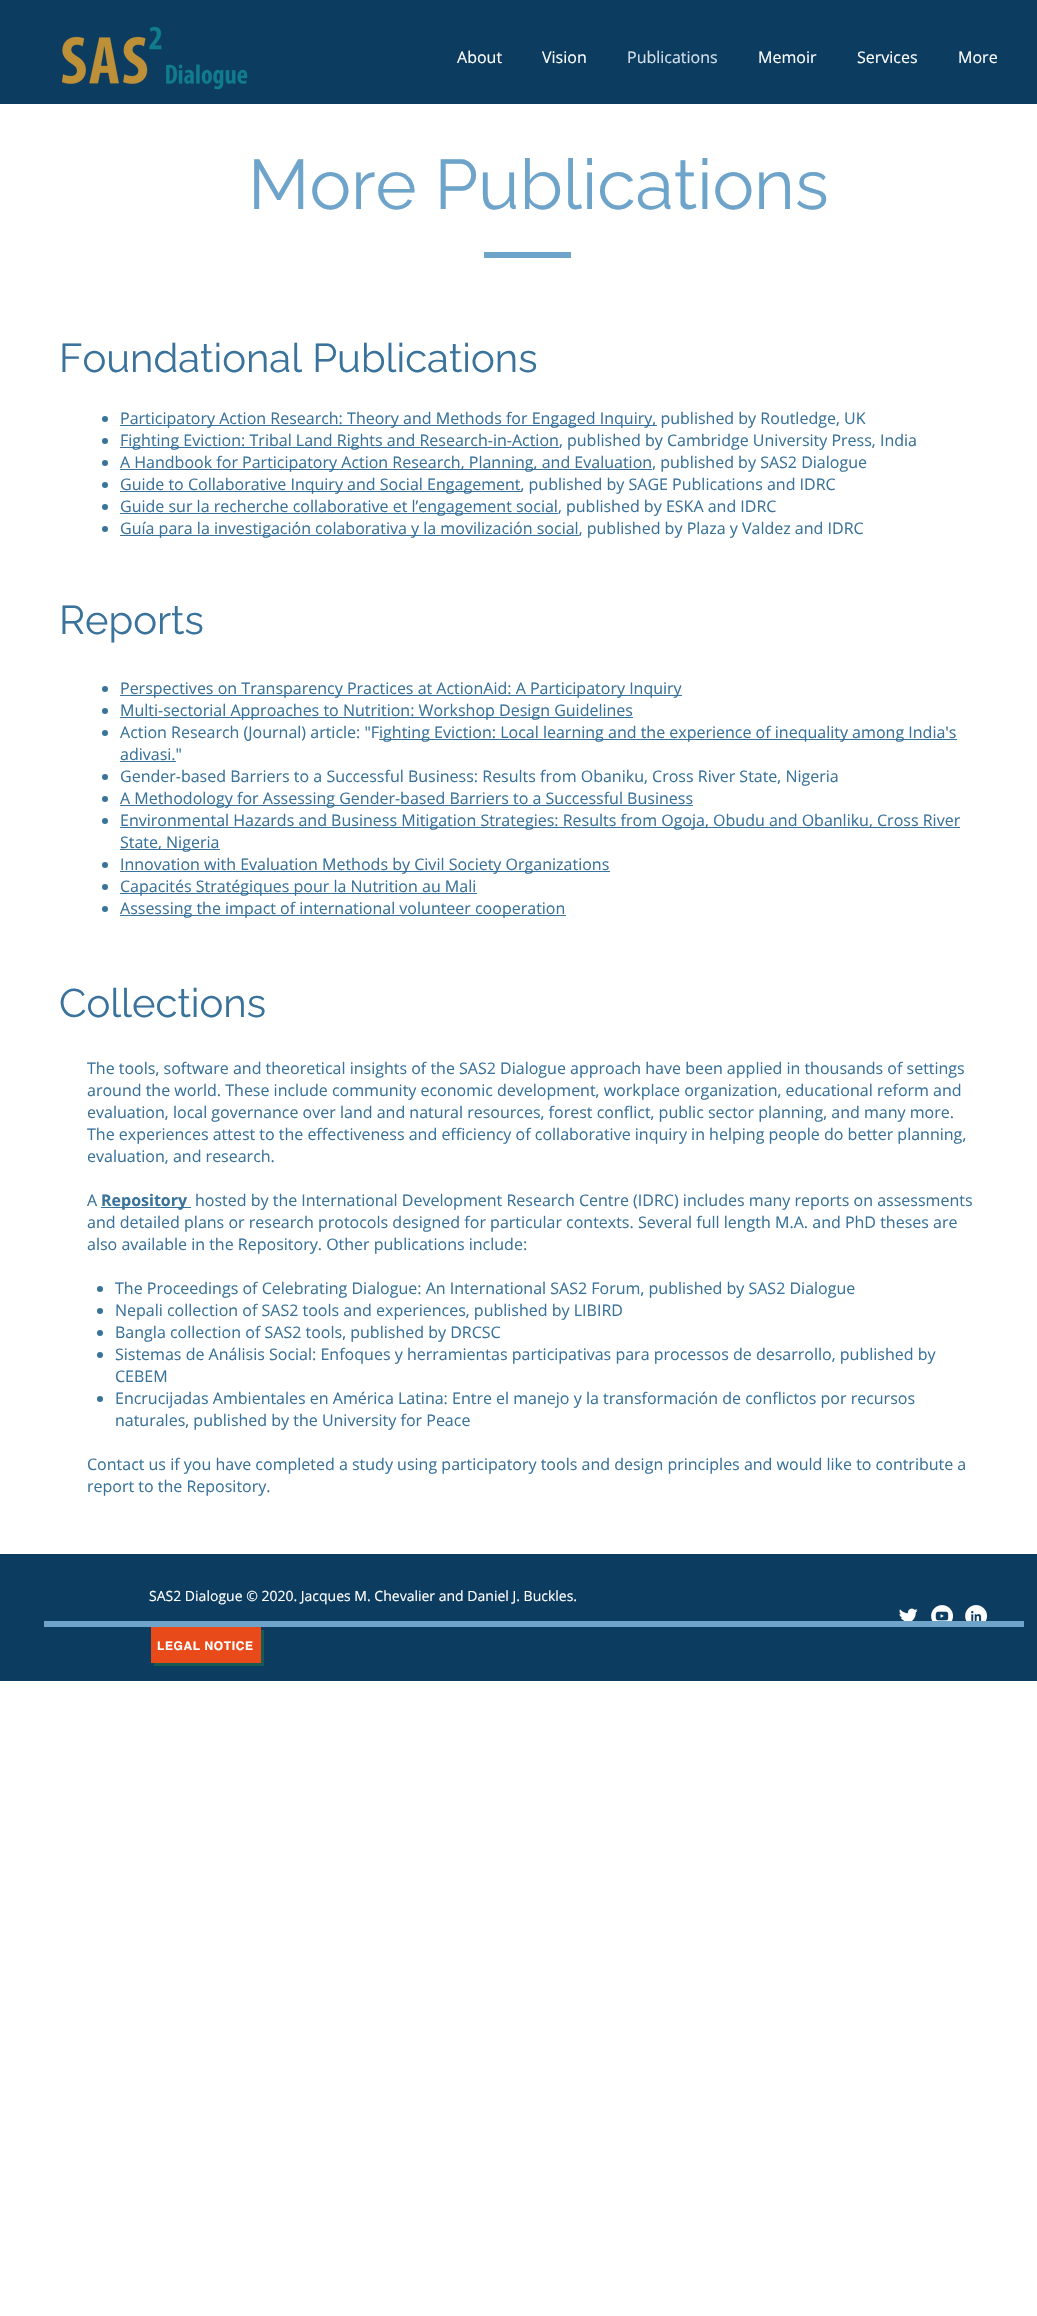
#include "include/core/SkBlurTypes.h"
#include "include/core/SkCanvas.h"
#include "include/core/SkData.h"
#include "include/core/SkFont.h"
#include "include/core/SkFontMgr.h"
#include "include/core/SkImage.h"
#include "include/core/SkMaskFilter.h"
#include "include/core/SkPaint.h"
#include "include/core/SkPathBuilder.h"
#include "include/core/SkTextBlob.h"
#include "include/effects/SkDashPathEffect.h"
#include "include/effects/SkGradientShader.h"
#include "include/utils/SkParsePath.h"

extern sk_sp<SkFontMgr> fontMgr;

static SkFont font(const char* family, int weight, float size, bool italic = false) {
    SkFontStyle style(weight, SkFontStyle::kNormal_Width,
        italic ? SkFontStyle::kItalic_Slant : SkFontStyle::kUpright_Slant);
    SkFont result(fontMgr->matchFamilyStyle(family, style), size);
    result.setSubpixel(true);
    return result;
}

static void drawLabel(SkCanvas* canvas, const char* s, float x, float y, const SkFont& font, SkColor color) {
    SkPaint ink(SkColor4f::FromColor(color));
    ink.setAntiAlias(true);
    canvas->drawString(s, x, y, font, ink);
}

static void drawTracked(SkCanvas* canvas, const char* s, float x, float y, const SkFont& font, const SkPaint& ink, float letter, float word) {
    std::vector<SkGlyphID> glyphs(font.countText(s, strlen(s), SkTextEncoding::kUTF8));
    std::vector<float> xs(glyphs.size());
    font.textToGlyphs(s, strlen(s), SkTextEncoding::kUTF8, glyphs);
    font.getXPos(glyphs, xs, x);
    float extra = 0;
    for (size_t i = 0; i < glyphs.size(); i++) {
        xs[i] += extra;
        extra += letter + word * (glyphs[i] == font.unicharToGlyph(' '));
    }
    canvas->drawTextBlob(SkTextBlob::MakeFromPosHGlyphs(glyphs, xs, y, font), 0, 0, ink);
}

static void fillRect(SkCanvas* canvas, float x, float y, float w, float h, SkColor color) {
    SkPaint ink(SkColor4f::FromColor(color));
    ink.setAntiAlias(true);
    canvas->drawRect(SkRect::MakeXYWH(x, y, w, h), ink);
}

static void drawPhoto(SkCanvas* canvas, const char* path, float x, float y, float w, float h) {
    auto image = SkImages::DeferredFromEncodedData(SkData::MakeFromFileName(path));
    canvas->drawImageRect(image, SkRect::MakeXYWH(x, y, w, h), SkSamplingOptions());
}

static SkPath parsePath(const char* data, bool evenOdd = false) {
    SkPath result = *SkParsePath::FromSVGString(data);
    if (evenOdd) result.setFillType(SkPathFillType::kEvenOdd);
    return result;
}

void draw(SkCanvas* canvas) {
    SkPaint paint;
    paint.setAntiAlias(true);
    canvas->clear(0xFFFFFFFF);
    fillRect(canvas, 0, 0, 1037, 104, 0xFF0C3C60);
    drawPhoto(canvas, "assets/img1.png", 61, 26, 187, 64);
    SkFont font1 = font("Open Sans", 400, 16);
    drawLabel(canvas, "About", 457, 63, font1, 0xFFFFFFFF);
    drawLabel(canvas, "Vision", 542, 63, font1, 0xFFFFFFFF);
    drawLabel(canvas, "Publications", 627, 63, font1, 0xFFD1E0EB);
    drawLabel(canvas, "Memoir", 758, 63, font1, 0xFFFFFFFF);
    drawLabel(canvas, "Services", 857, 63, font1, 0xFFFFFFFF);
    drawLabel(canvas, "More", 958, 63, font1, 0xFFFFFFFF);
    SkFont font2 = font("Raleway", 400, 70);
    drawLabel(canvas, "More Publications", 248, 209, font2, 0xFF6EA4CA);
    fillRect(canvas, 484, 252, 87, 6, 0xFF6EA4CA);
    SkFont font3 = font("Raleway", 400, 40);
    drawLabel(canvas, "Foundational Publications", 59, 372, font3, 0xFF39729B);
    paint.setColor(0xFF39729B);
    canvas->drawCircle(105, 419, 3, paint);
    fillRect(canvas, 120, 425, 537, 1, 0xFF39729B);
    drawLabel(canvas, "Participatory Action Research: Theory and Methods for Engaged Inquiry, published by Routledge, UK", 120, 424, font1, 0xFF39729B);
    canvas->drawCircle(105, 441, 3, paint);
    fillRect(canvas, 120, 447, 439, 1, 0xFF39729B);
    drawLabel(canvas, "Fighting Eviction: Tribal Land Rights and Research-in-Action, published by Cambridge University Press, India", 120, 446, font1, 0xFF39729B);
    canvas->drawCircle(105, 463, 3, paint);
    fillRect(canvas, 120, 469, 532, 1, 0xFF39729B);
    drawLabel(canvas, "A Handbook for Participatory Action Research, Planning, and Evaluation, published by SAS2 Dialogue", 120, 468, font1, 0xFF39729B);
    canvas->drawCircle(105, 485, 3, paint);
    fillRect(canvas, 120, 491, 401, 1, 0xFF39729B);
    drawLabel(canvas, "Guide to Collaborative Inquiry and Social Engagement, published by SAGE Publications and IDRC", 120, 490, font1, 0xFF39729B);
    canvas->drawCircle(105, 507, 3, paint);
    fillRect(canvas, 120, 513, 438, 1, 0xFF39729B);
    drawLabel(canvas, "Guide sur la recherche collaborative et l’engagement social, published by ESKA and IDRC", 120, 512, font1, 0xFF39729B);
    canvas->drawCircle(105, 529, 3, paint);
    fillRect(canvas, 120, 535, 459, 1, 0xFF39729B);
    drawLabel(canvas, "Guía para la investigación colaborativa y la movilización social, published by Plaza y Valdez and IDRC", 120, 534, font1, 0xFF39729B);
    drawLabel(canvas, "Reports", 59, 634, font3, 0xFF39729B);
    canvas->drawCircle(105, 689, 3, paint);
    fillRect(canvas, 120, 695, 562, 1, 0xFF39729B);
    drawLabel(canvas, "Perspectives on Transparency Practices at ActionAid: A Participatory Inquiry", 120, 694, font1, 0xFF39729B);
    canvas->drawCircle(105, 711, 3, paint);
    fillRect(canvas, 120, 717, 513, 1, 0xFF39729B);
    drawLabel(canvas, "Multi-sectorial Approaches to Nutrition: Workshop Design Guidelines", 120, 716, font1, 0xFF39729B);
    canvas->drawCircle(105, 733, 3, paint);
    drawLabel(canvas, "Action Research (Journal) article: \"F", 120, 738, font1, 0xFF39729B);
    fillRect(canvas, 379, 739, 578, 1, 0xFF39729B);
    drawLabel(canvas, "ighting Eviction: Local learning and the experience of inequality among India's", 379, 738, font1, 0xFF39729B);
    drawLabel(canvas, "adivasi.\"", 120, 760, font1, 0xFF39729B);
    fillRect(canvas, 120, 761, 56, 1, 0xFF39729B);
    canvas->drawCircle(105, 777, 3, paint);
    drawLabel(canvas, "Gender-based Barriers to a Successful Business: Results from Obaniku, Cross River State, Nigeria", 120, 782, font1, 0xFF39729B);
    canvas->drawCircle(105, 799, 3, paint);
    fillRect(canvas, 120, 805, 573, 1, 0xFF39729B);
    drawLabel(canvas, "A Methodology for Assessing Gender-based Barriers to a Successful Business", 120, 804, font1, 0xFF39729B);
    canvas->drawCircle(105, 821, 3, paint);
    fillRect(canvas, 120, 827, 840, 1, 0xFF39729B);
    drawLabel(canvas, "Environmental Hazards and Business Mitigation Strategies: Results from Ogoja, Obudu and Obanliku, Cross River", 120, 826, font1, 0xFF39729B);
    fillRect(canvas, 120, 849, 100, 1, 0xFF39729B);
    drawLabel(canvas, "State, Nigeria", 120, 848, font1, 0xFF39729B);
    canvas->drawCircle(105, 865, 3, paint);
    fillRect(canvas, 120, 871, 490, 1, 0xFF39729B);
    drawLabel(canvas, "Innovation with Evaluation Methods by Civil Society Organizations", 120, 870, font1, 0xFF39729B);
    canvas->drawCircle(105, 887, 3, paint);
    fillRect(canvas, 120, 893, 357, 1, 0xFF39729B);
    drawLabel(canvas, "Capacités Stratégiques pour la Nutrition au Mali", 120, 892, font1, 0xFF39729B);
    canvas->drawCircle(105, 909, 3, paint);
    fillRect(canvas, 120, 915, 446, 1, 0xFF39729B);
    drawLabel(canvas, "Assessing the impact of international volunteer cooperation", 120, 914, font1, 0xFF39729B);
    drawLabel(canvas, "Collections", 59, 1017, font3, 0xFF39729B);
    drawLabel(canvas, "The tools, software and theoretical insights of the SAS2 Dialogue approach have been applied in thousands of settings", 87, 1074, font1, 0xFF39729B);
    drawLabel(canvas, "around the world. These include community economic development, workplace organization, educational reform and", 87, 1096, font1, 0xFF39729B);
    drawLabel(canvas, "evaluation, local governance over land and natural resources, forest conflict, public sector planning, and many more.", 87, 1118, font1, 0xFF39729B);
    drawLabel(canvas, "The experiences attest to the effectiveness and efficiency of collaborative inquiry in helping people do better planning,", 87, 1140, font1, 0xFF39729B);
    drawLabel(canvas, "evaluation, and research.", 87, 1162, font1, 0xFF39729B);
    drawLabel(canvas, "A", 87, 1206, font1, 0xFF39729B);
    fillRect(canvas, 101, 1207, 90, 1, 0xFF39729B);
    SkFont font4 = font("Open Sans", 700, 16);
    drawLabel(canvas, "Repository", 101, 1206, font4, 0xFF39729B);
    drawLabel(canvas, "hosted by the International Development Research Centre (IDRC) includes many reports on assessments", 195, 1206, font1, 0xFF39729B);
    drawLabel(canvas, "and detailed plans or research protocols designed for particular contexts. Several full length M.A. and PhD theses are", 87, 1228, font1, 0xFF39729B);
    drawLabel(canvas, "also available in the Repository. Other publications include:", 87, 1250, font1, 0xFF39729B);
    canvas->drawCircle(100, 1289, 3, paint);
    drawLabel(canvas, "The Proceedings of Celebrating Dialogue: An International SAS2 Forum, published by SAS2 Dialogue", 115, 1294, font1, 0xFF39729B);
    canvas->drawCircle(100, 1311, 3, paint);
    drawLabel(canvas, "Nepali collection of SAS2 tools and experiences, published by LIBIRD", 115, 1316, font1, 0xFF39729B);
    canvas->drawCircle(100, 1333, 3, paint);
    drawLabel(canvas, "Bangla collection of SAS2 tools, published by DRCSC", 115, 1338, font1, 0xFF39729B);
    canvas->drawCircle(100, 1355, 3, paint);
    drawLabel(canvas, "Sistemas de Análisis Social: Enfoques y herramientas participativas para processos de desarrollo, published by", 115, 1360, font1, 0xFF39729B);
    drawLabel(canvas, "CEBEM", 115, 1382, font1, 0xFF39729B);
    canvas->drawCircle(100, 1399, 3, paint);
    drawLabel(canvas, "Encrucijadas Ambientales en América Latina: Entre el manejo y la transformación de conflictos por recursos", 115, 1404, font1, 0xFF39729B);
    drawLabel(canvas, "naturales, published by the University for Peace", 115, 1426, font1, 0xFF39729B);
    drawLabel(canvas, "Contact us if you have completed a study using participatory tools and design principles and would like to contribute a", 87, 1470, font1, 0xFF39729B);
    drawLabel(canvas, "report to the Repository.", 87, 1492, font1, 0xFF39729B);
    fillRect(canvas, 0, 1554, 1037, 127, 0xFF0C3C60);
    SkFont font5 = font("Open Sans", 400, 14);
    drawLabel(canvas, "SAS2 Dialogue © 2020. Jacques M. Chevalier and Daniel J. Buckles.", 149, 1601, font5, 0xFFFFFFFF);
    drawPhoto(canvas, "assets/img2.png", 899, 1608, 19, 13);
    drawPhoto(canvas, "assets/img3.png", 931, 1605, 22, 16);
    drawPhoto(canvas, "assets/img4.png", 965, 1605, 22, 16);
    fillRect(canvas, 44, 1621, 980, 6, 0xFF6EA4CA);
    paint.setColor(0xFF195B52);
    canvas->drawPath(parsePath("M154 1663V1666H264V1630H261V1663Z"), paint);
    fillRect(canvas, 151, 1627, 110, 36, 0xFFE84A1A);
    SkFont font6 = font("helvetica", 700, 12);
    paint.setColor(0xFFFFFFFF);
    drawTracked(canvas, "LEGAL NOTICE", 157, 1650, font6, paint, 0.6f, 0);
}
